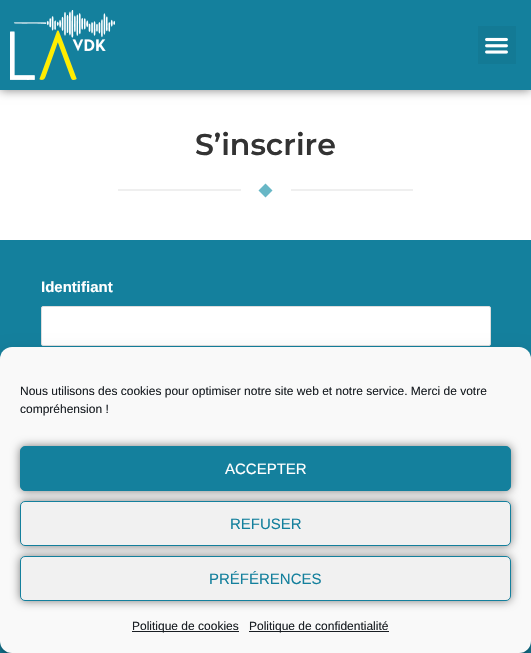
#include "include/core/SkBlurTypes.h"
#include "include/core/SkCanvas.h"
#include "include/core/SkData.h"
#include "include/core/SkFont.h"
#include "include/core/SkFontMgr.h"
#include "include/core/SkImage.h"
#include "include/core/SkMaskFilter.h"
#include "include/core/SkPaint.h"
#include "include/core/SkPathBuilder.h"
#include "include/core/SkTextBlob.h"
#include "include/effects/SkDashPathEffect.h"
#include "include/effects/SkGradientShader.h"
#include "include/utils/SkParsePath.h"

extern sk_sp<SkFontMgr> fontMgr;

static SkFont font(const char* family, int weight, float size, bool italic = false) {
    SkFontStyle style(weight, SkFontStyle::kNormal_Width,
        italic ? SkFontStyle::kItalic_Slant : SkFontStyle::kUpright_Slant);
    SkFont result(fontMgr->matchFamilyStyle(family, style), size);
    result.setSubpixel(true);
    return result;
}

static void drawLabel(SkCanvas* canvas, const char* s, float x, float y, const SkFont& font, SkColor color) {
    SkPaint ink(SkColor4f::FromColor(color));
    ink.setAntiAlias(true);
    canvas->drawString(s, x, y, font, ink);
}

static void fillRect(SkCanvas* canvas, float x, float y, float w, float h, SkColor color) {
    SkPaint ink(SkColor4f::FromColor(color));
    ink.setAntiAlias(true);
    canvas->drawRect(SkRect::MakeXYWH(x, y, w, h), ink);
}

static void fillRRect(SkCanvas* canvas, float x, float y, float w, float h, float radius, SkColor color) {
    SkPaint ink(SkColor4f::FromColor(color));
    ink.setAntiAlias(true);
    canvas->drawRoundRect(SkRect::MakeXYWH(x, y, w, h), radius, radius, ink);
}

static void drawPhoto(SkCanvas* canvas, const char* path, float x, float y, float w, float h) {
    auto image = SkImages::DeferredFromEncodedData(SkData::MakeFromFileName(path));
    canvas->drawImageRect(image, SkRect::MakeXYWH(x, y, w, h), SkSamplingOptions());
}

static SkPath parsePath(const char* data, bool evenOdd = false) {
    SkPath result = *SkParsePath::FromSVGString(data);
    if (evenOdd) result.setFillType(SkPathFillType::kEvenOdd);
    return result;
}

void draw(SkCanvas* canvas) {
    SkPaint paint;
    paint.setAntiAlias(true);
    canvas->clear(0xFFFFFFFF);
    paint.setColor(0x80000000);
    paint.setMaskFilter(SkMaskFilter::MakeBlur(kNormal_SkBlurStyle, 5));
    canvas->drawRect(SkRect::MakeXYWH(0, 0, 531, 90), paint);
    paint.setMaskFilter(nullptr);
    fillRect(canvas, 0, 0, 531, 90, 0xFF14809D);
    drawPhoto(canvas, "assets/img1.png", 10, 10, 105, 70);
    fillRect(canvas, 478, 26, 38, 38, 0xFF137A95);
    drawPhoto(canvas, "assets/img2.png", 485, 37, 23, 17);
    SkFont font1 = font("Montserrat", 600, 30);
    drawLabel(canvas, "S’inscrire", 195, 155, font1, 0xFF333333);
    fillRect(canvas, 118, 189, 123, 2, 0xFFEFEFEF);
    paint.setColor(0xFF68B7C6);
    canvas->drawPath(parsePath("M265.5 197.5L258.5 190.5L265.5 183.5L272.5 190.5Z"), paint);
    fillRect(canvas, 291, 189, 122, 2, 0xFFEFEFEF);
    fillRect(canvas, 0, 240, 531, 413, 0xFF14809D);
    SkFont font2 = font("Liberation Sans", 700, 15);
    drawLabel(canvas, "Identifiant", 41, 292, font2, 0xFFFFFFFF);
    paint.setColor(0xFFFFFFFF);
    canvas->drawRoundRect(SkRect::MakeXYWH(41.5f, 306.5f, 449, 39), 1.5f, 1.5f, paint);
    paint.setStroke(true);
    paint.setStrokeWidth(1);
    paint.setColor(0xFFDDDDDD);
    canvas->drawRoundRect(SkRect::MakeXYWH(41.5f, 306.5f, 449, 39), 1.5f, 1.5f, paint);
    paint.setStroke(false);
    paint.setColor(0x3B000000);
    paint.setMaskFilter(SkMaskFilter::MakeBlur(kNormal_SkBlurStyle, 3));
    canvas->drawRoundRect(SkRect::MakeXYWH(0, 353, 531, 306), 12, 12, paint);
    paint.setMaskFilter(nullptr);
    paint.setColor(0x30000000);
    paint.setMaskFilter(SkMaskFilter::MakeBlur(kNormal_SkBlurStyle, 10));
    canvas->drawRoundRect(SkRect::MakeXYWH(0, 357, 531, 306), 12, 12, paint);
    paint.setMaskFilter(nullptr);
    fillRRect(canvas, 0, 347, 531, 306, 12, 0xFFF9F9F9);
    SkFont font3 = font("Liberation Sans", 400, 12);
    drawLabel(canvas, "Nous utilisons des cookies pour optimiser notre site web et notre service. Merci de votre", 20, 395, font3, 0xFF191E23);
    drawLabel(canvas, "compréhension !", 20, 413, font3, 0xFF191E23);
    paint.setColor(0x80000000);
    paint.setMaskFilter(SkMaskFilter::MakeBlur(kNormal_SkBlurStyle, 5));
    canvas->drawRoundRect(SkRect::MakeXYWH(20, 446, 491, 45), 5, 5, paint);
    paint.setMaskFilter(nullptr);
    paint.setColor(0xFF14809D);
    canvas->drawRoundRect(SkRect::MakeXYWH(20.5f, 446.5f, 490, 44), 4.5f, 4.5f, paint);
    paint.setStroke(true);
    canvas->drawRoundRect(SkRect::MakeXYWH(20.5f, 446.5f, 490, 44), 4.5f, 4.5f, paint);
    SkFont font4 = font("Liberation Sans", 400, 15);
    drawLabel(canvas, "ACCEPTER", 225, 474, font4, 0xFFFFFFFF);
    paint.setStroke(false);
    paint.setColor(0x80000000);
    paint.setMaskFilter(SkMaskFilter::MakeBlur(kNormal_SkBlurStyle, 5));
    canvas->drawRoundRect(SkRect::MakeXYWH(20, 501, 491, 45), 5, 5, paint);
    paint.setMaskFilter(nullptr);
    paint.setColor(0xFFF1F1F1);
    canvas->drawRoundRect(SkRect::MakeXYWH(20.5f, 501.5f, 490, 44), 4.5f, 4.5f, paint);
    paint.setStroke(true);
    paint.setColor(0xFF14809D);
    canvas->drawRoundRect(SkRect::MakeXYWH(20.5f, 501.5f, 490, 44), 4.5f, 4.5f, paint);
    drawLabel(canvas, "REFUSER", 230, 529, font4, 0xFF14809D);
    paint.setStroke(false);
    paint.setColor(0x80000000);
    paint.setMaskFilter(SkMaskFilter::MakeBlur(kNormal_SkBlurStyle, 5));
    canvas->drawRoundRect(SkRect::MakeXYWH(20, 556, 491, 45), 5, 5, paint);
    paint.setMaskFilter(nullptr);
    paint.setColor(0xFFF1F1F1);
    canvas->drawRoundRect(SkRect::MakeXYWH(20.5f, 556.5f, 490, 44), 4.5f, 4.5f, paint);
    paint.setStroke(true);
    paint.setColor(0xFF14809D);
    canvas->drawRoundRect(SkRect::MakeXYWH(20.5f, 556.5f, 490, 44), 4.5f, 4.5f, paint);
    drawLabel(canvas, "PRÉFÉRENCES", 209, 584, font4, 0xFF14809D);
    fillRect(canvas, 132, 631, 107, 1, 0xFF191E23);
    drawLabel(canvas, "Politique de cookies", 132, 630, font3, 0xFF191E23);
    fillRect(canvas, 249, 631, 140, 1, 0xFF191E23);
    drawLabel(canvas, "Politique de confidentialité", 249, 630, font3, 0xFF191E23);
}
